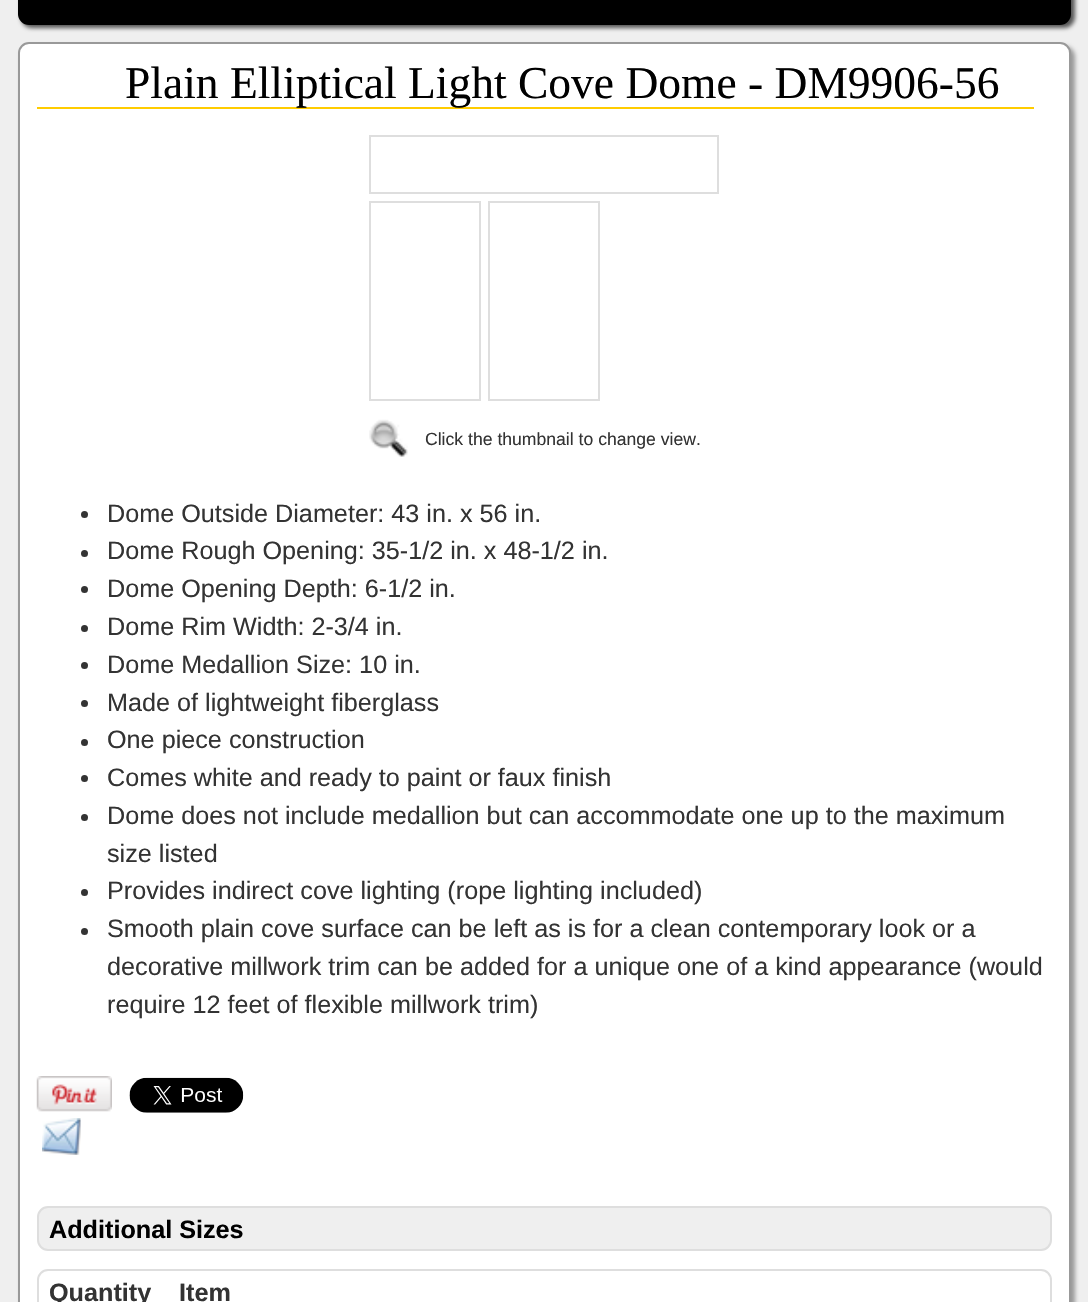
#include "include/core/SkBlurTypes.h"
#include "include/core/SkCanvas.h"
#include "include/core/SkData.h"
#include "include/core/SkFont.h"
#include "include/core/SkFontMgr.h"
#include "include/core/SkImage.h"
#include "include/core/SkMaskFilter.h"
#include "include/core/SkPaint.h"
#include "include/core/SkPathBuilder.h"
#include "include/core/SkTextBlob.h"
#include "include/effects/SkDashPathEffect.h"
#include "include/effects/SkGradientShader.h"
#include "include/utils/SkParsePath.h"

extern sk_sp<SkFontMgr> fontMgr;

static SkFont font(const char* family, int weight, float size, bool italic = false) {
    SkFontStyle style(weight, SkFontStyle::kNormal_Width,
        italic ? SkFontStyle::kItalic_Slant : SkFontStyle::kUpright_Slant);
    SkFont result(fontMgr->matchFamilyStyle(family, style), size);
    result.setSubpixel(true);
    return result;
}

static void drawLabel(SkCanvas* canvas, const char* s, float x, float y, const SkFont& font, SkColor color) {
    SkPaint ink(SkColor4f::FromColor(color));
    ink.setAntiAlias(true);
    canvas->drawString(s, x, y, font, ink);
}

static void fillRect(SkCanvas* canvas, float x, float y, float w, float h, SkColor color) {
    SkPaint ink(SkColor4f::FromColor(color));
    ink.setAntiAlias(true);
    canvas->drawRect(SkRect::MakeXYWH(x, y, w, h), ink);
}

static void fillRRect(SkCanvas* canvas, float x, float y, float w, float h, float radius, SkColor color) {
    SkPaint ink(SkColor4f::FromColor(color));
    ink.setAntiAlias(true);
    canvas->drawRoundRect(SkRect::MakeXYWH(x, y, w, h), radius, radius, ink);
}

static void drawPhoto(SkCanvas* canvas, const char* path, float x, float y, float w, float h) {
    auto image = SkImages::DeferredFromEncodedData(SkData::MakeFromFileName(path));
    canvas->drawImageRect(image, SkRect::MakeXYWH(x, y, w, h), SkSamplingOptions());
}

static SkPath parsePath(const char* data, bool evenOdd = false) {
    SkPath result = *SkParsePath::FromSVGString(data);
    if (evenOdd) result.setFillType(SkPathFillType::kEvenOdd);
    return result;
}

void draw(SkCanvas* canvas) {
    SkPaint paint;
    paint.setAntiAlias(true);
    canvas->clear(0xFFEFEFEF);
    paint.setColor(0xFF555555);
    paint.setMaskFilter(SkMaskFilter::MakeBlur(kNormal_SkBlurStyle, 2));
    canvas->drawRoundRect(SkRect::MakeXYWH(21, -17, 1054, 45), 11, 11, paint);
    paint.setMaskFilter(nullptr);
    fillRRect(canvas, 18, -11, 1053, 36, 11, 0xFF000000);
    paint.setColor(0xFF999999);
    paint.setMaskFilter(SkMaskFilter::MakeBlur(kNormal_SkBlurStyle, 2));
    canvas->drawRoundRect(SkRect::MakeXYWH(21, 46, 1054, 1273), 11, 11, paint);
    paint.setMaskFilter(nullptr);
    paint.setColor(0xFFFFFFFF);
    canvas->drawPath(parsePath("M29 43H1060C1065.5 43 1070 47.5 1070 53V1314H19V53C19 47.5 23.5 43 29 43Z"), paint);
    paint.setStroke(true);
    paint.setStrokeWidth(2);
    paint.setColor(0xFF999999);
    canvas->drawPath(parsePath("M29 43H1060C1065.5 43 1070 47.5 1070 53V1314H19V53C19 47.5 23.5 43 29 43Z"), paint);
    fillRect(canvas, 37, 107, 997, 2, 0xFFFFCC00);
    SkFont font1 = font("Liberation Serif", 400, 45.5f);
    drawLabel(canvas, "Plain Elliptical Light Cove Dome - DM9906-56", 125, 98, font1, 0xFF000000);
    paint.setColor(0xFFDEDEDE);
    canvas->drawRect(SkRect::MakeXYWH(370, 136, 348, 57), paint);
    canvas->drawRect(SkRect::MakeXYWH(370, 202, 110, 198), paint);
    canvas->drawRect(SkRect::MakeXYWH(489, 202, 110, 198), paint);
    drawPhoto(canvas, "assets/img1.png", 369, 419, 39, 38);
    SkFont font2 = font("Liberation Sans", 400, 17.6f);
    drawLabel(canvas, "Click the thumbnail to change view.", 425, 445, font2, 0xFF333333);
    paint.setStroke(false);
    paint.setColor(0xFF333333);
    canvas->drawCircle(84.5f, 514.5f, 3.5f, paint);
    SkFont font3 = font("Liberation Sans", 400, 25.2f);
    drawLabel(canvas, "Dome Outside Diameter: 43 in. x 56 in.", 107, 522, font3, 0xFF333333);
    canvas->drawCircle(84.5f, 553.5f, 3.5f, paint);
    drawLabel(canvas, "Dome Rough Opening: 35-1/2 in. x 48-1/2 in.", 107, 559, font3, 0xFF333333);
    canvas->drawCircle(84.5f, 589.5f, 3.5f, paint);
    drawLabel(canvas, "Dome Opening Depth: 6-1/2 in.", 107, 597, font3, 0xFF333333);
    canvas->drawCircle(84.5f, 628.5f, 3.5f, paint);
    drawLabel(canvas, "Dome Rim Width: 2-3/4 in.", 107, 635, font3, 0xFF333333);
    canvas->drawCircle(84.5f, 665.5f, 3.5f, paint);
    drawLabel(canvas, "Dome Medallion Size: 10 in.", 107, 673, font3, 0xFF333333);
    canvas->drawCircle(84.5f, 703.5f, 3.5f, paint);
    drawLabel(canvas, "Made of lightweight fiberglass", 107, 711, font3, 0xFF333333);
    canvas->drawCircle(84.5f, 742.5f, 3.5f, paint);
    drawLabel(canvas, "One piece construction", 107, 748, font3, 0xFF333333);
    canvas->drawCircle(84.5f, 778.5f, 3.5f, paint);
    drawLabel(canvas, "Comes white and ready to paint or faux finish", 107, 786, font3, 0xFF333333);
    canvas->drawCircle(84.5f, 817.5f, 3.5f, paint);
    drawLabel(canvas, "Dome does not include medallion but can accommodate one up to the maximum", 107, 824, font3, 0xFF333333);
    drawLabel(canvas, "size listed", 107, 862, font3, 0xFF333333);
    canvas->drawCircle(84.5f, 892.5f, 3.5f, paint);
    drawLabel(canvas, "Provides indirect cove lighting (rope lighting included)", 107, 899, font3, 0xFF333333);
    canvas->drawCircle(84.5f, 931.5f, 3.5f, paint);
    drawLabel(canvas, "Smooth plain cove surface can be left as is for a clean contemporary look or a", 107, 937, font3, 0xFF333333);
    drawLabel(canvas, "decorative millwork trim can be added for a unique one of a kind appearance (would", 107, 975, font3, 0xFF333333);
    drawLabel(canvas, "require 12 feet of flexible millwork trim)", 107, 1013, font3, 0xFF333333);
    drawPhoto(canvas, "assets/img2.png", 36, 1076, 76, 36);
    drawPhoto(canvas, "assets/img3.png", 129, 1077, 115, 36);
    drawPhoto(canvas, "assets/img4.png", 42, 1118, 39, 37);
    paint.setColor(0xFFEFEFEF);
    canvas->drawRoundRect(SkRect::MakeXYWH(38, 1207, 1013, 43), 10, 10, paint);
    paint.setStroke(true);
    paint.setColor(0xFFDEDEDE);
    canvas->drawRoundRect(SkRect::MakeXYWH(38, 1207, 1013, 43), 10, 10, paint);
    SkFont font4 = font("Liberation Sans", 700, 25.2f);
    drawLabel(canvas, "Additional Sizes", 49, 1238, font4, 0xFF000000);
    canvas->drawRoundRect(SkRect::MakeXYWH(38, 1270, 1013, 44), 10, 10, paint);
    drawLabel(canvas, "Quantity", 49, 1301, font4, 0xFF333333);
    drawLabel(canvas, "Item", 179, 1301, font4, 0xFF333333);
}
